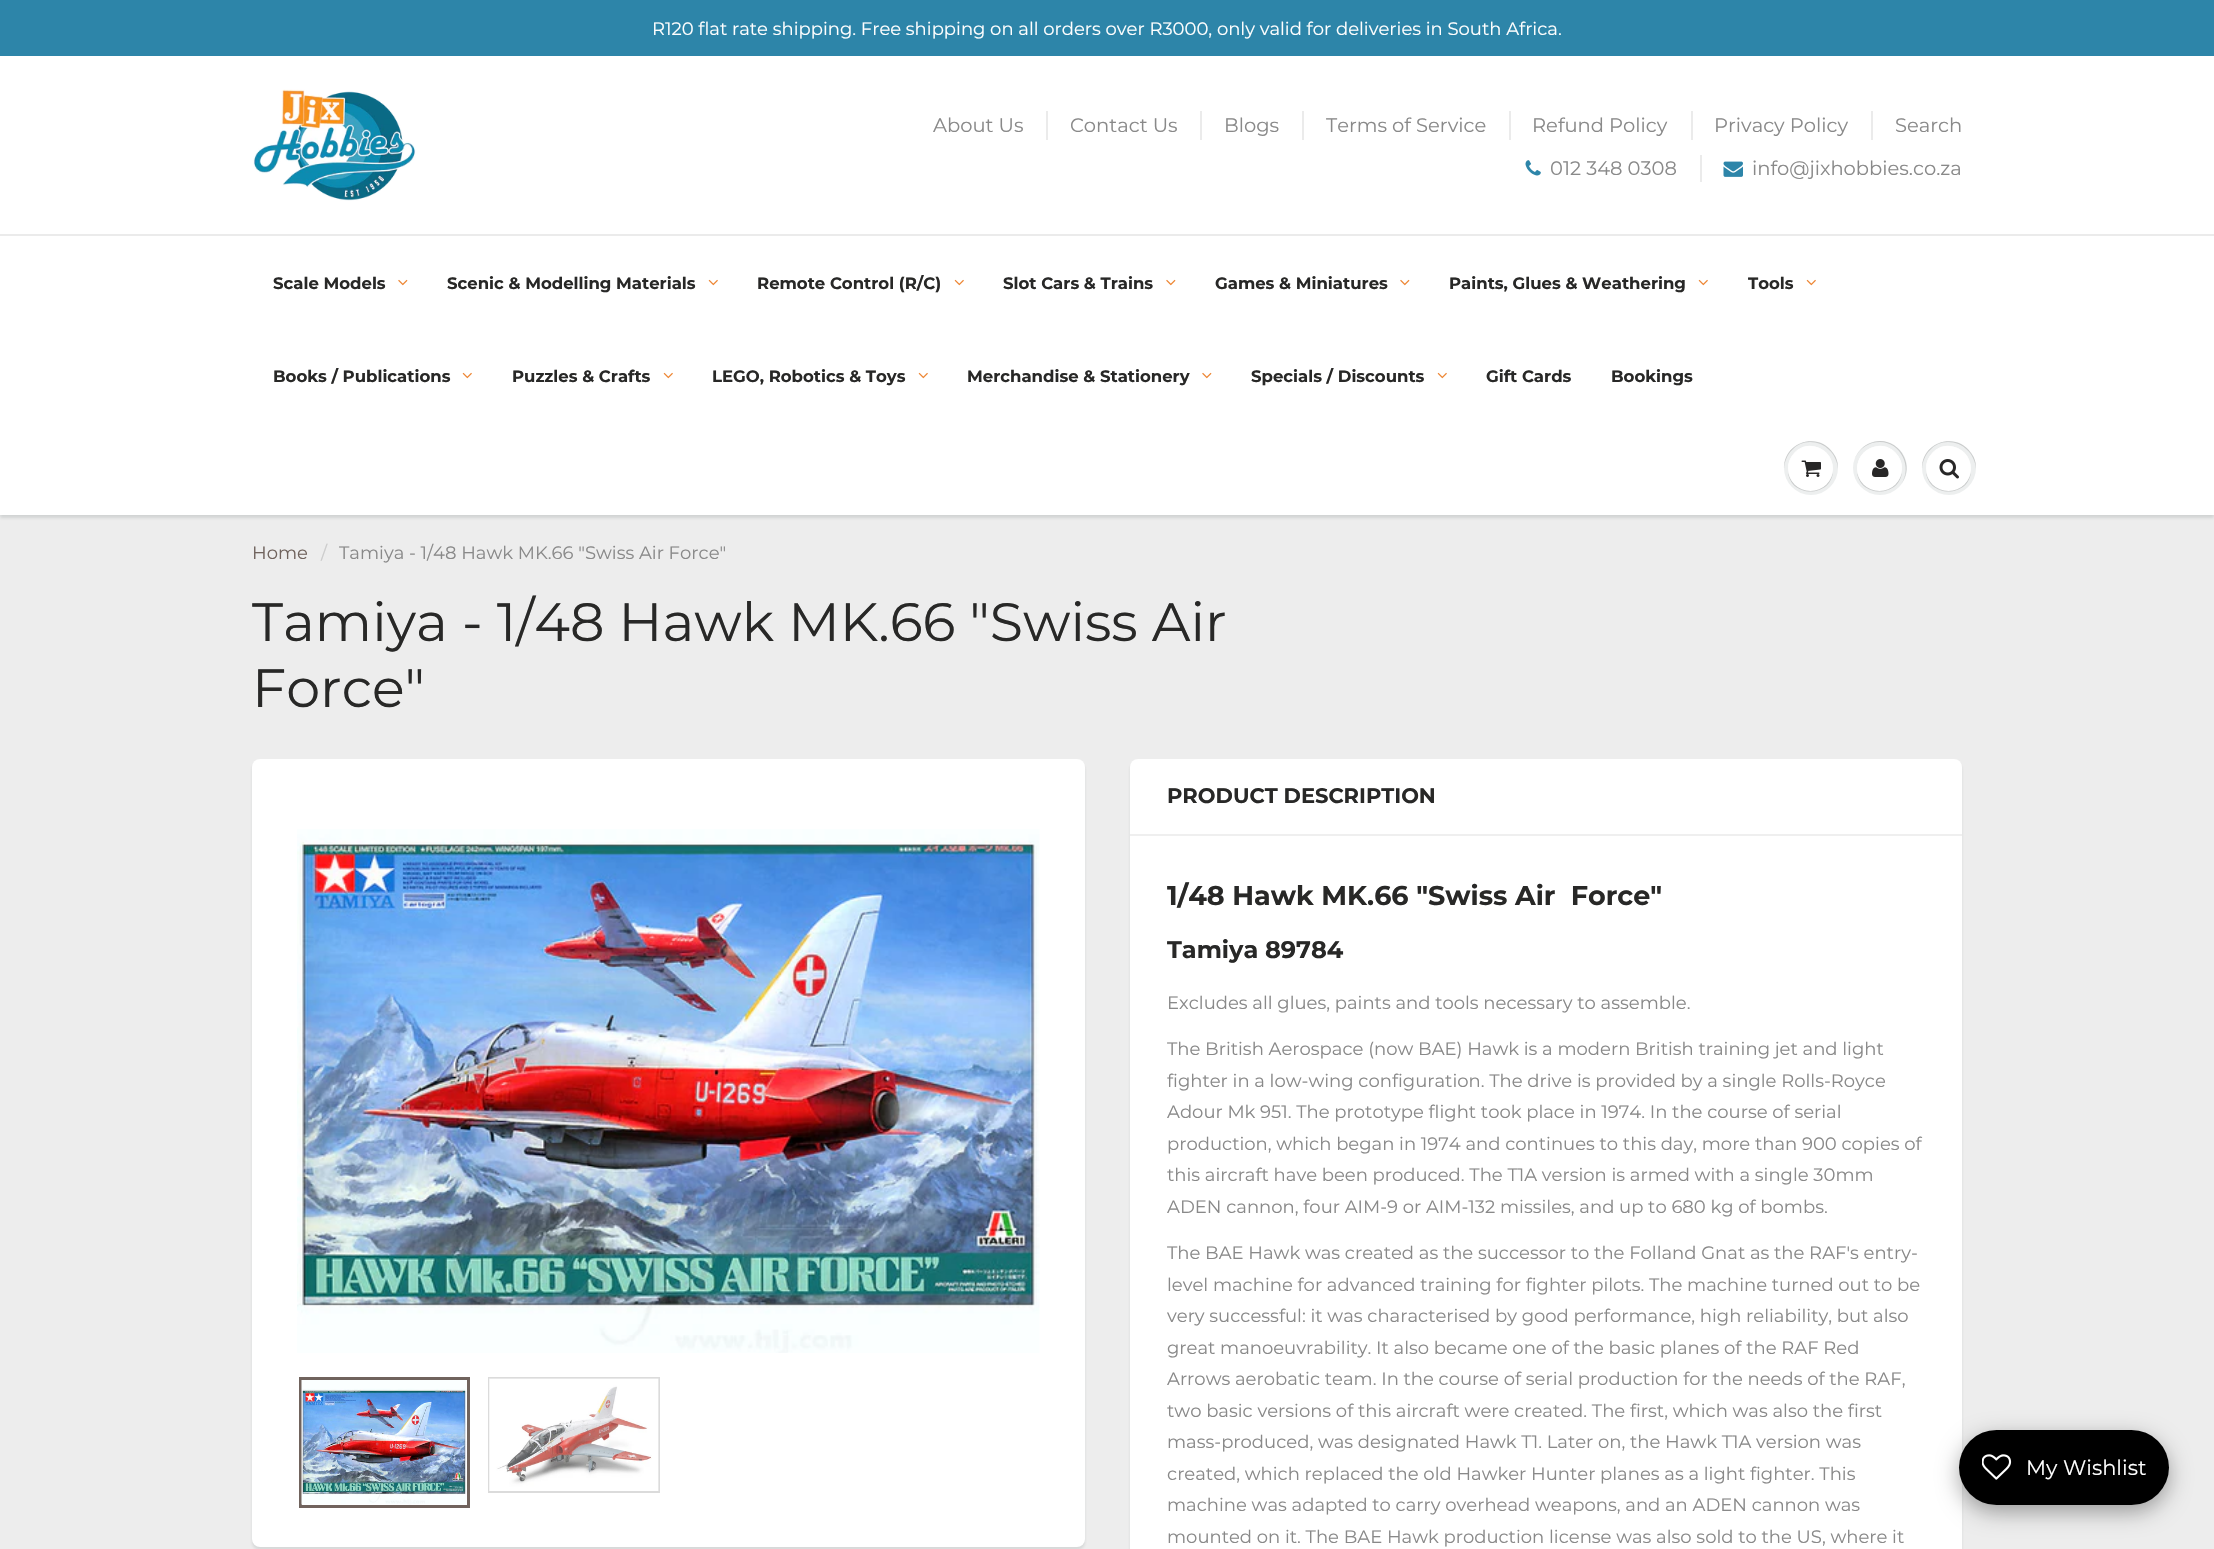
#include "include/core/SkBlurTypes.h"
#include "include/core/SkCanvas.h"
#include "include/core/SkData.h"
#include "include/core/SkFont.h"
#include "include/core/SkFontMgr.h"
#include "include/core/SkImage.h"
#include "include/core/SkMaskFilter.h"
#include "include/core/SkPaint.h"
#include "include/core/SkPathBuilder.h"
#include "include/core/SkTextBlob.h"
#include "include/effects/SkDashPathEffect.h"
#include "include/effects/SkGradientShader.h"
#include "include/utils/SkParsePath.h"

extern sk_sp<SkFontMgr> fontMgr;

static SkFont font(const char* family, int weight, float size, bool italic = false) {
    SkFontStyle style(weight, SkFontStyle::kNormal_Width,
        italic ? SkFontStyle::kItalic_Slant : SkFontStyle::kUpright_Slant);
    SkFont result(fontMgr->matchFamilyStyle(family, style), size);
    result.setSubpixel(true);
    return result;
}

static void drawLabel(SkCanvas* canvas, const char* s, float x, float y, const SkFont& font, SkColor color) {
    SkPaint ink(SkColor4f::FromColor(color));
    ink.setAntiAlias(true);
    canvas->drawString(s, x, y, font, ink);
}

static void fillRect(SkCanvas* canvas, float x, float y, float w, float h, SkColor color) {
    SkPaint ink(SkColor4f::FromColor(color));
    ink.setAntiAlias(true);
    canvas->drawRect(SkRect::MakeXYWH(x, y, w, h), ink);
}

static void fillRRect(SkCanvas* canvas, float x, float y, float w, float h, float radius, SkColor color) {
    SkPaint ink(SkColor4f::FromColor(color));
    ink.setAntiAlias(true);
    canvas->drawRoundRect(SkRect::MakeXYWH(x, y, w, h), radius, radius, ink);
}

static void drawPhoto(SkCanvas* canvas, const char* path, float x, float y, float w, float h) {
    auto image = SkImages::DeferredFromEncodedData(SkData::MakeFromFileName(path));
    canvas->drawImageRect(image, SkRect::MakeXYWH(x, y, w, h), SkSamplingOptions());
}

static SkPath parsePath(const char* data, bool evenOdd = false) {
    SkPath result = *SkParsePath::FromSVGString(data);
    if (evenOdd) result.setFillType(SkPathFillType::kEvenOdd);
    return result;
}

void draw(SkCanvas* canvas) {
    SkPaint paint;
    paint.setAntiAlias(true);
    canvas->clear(0xFFFFFFFF);
    fillRect(canvas, 0, 0, 2214, 56, 0xFF2D85A9);
    SkFont font1 = font("Montserrat", 400, 18);
    drawLabel(canvas, "R120 flat rate shipping. Free shipping on all orders over R3000, only valid for deliveries in South Africa.", 652, 35, font1, 0xFFFFFFFF);
    drawPhoto(canvas, "assets/img1.png", 253, 89, 163, 112);
    SkFont font2 = font("Montserrat", 400, 19.5f);
    drawLabel(canvas, "About Us", 933, 132, font2, 0xFF898989);
    fillRect(canvas, 1046, 111, 2, 29, 0xFFEBEBEB);
    drawLabel(canvas, "Contact Us", 1070, 132, font2, 0xFF898989);
    fillRect(canvas, 1200, 111, 2, 29, 0xFFEBEBEB);
    drawLabel(canvas, "Blogs", 1224, 132, font2, 0xFF898989);
    fillRect(canvas, 1302, 111, 2, 29, 0xFFEBEBEB);
    drawLabel(canvas, "Terms of Service", 1326, 132, font2, 0xFF898989);
    fillRect(canvas, 1509, 111, 2, 29, 0xFFEBEBEB);
    drawLabel(canvas, "Refund Policy", 1532, 132, font2, 0xFF898989);
    fillRect(canvas, 1691, 111, 2, 29, 0xFFEBEBEB);
    drawLabel(canvas, "Privacy Policy", 1714, 132, font2, 0xFF898989);
    fillRect(canvas, 1871, 111, 2, 29, 0xFFEBEBEB);
    drawLabel(canvas, "Search", 1895, 132, font2, 0xFF898989);
    drawPhoto(canvas, "assets/img2.png", 1525, 160, 16, 16);
    drawLabel(canvas, "012 348 0308", 1550, 175, font2, 0xFF898989);
    fillRect(canvas, 1700, 155, 2, 27, 0xFFEBEBEB);
    drawPhoto(canvas, "assets/img3.png", 1723, 161, 20, 16);
    drawLabel(canvas, "info@jixhobbies.co.za", 1752, 175, font2, 0xFF898989);
    fillRect(canvas, 0, 515, 2214, 1034, 0xFFEDEDED);
    paint.setColor(0x1F0B191C);
    paint.setMaskFilter(SkMaskFilter::MakeBlur(kNormal_SkBlurStyle, 1.5f));
    canvas->drawRect(SkRect::MakeXYWH(0, 237, 2214, 281), paint);
    paint.setMaskFilter(nullptr);
    fillRect(canvas, 0, 236, 2214, 279, 0xFFFFFFFF);
    fillRect(canvas, 0, 234, 2214, 2, 0xFFEBEBEB);
    SkFont font3 = font("Montserrat", 700, 16.5f);
    drawLabel(canvas, "Scale Models", 273, 289, font3, 0xFF282827);
    drawPhoto(canvas, "assets/img4.png", 398, 279, 10, 7);
    drawLabel(canvas, "Scenic & Modelling Materials", 447, 289, font3, 0xFF282827);
    drawPhoto(canvas, "assets/img5.png", 708, 279, 10, 7);
    drawLabel(canvas, "Remote Control (R/C)", 757, 289, font3, 0xFF282827);
    drawPhoto(canvas, "assets/img5.png", 954, 279, 10, 7);
    drawLabel(canvas, "Slot Cars & Trains", 1003, 289, font3, 0xFF282827);
    drawPhoto(canvas, "assets/img4.png", 1166, 279, 10, 7);
    drawLabel(canvas, "Games & Miniatures", 1215, 289, font3, 0xFF282827);
    drawPhoto(canvas, "assets/img4.png", 1400, 279, 10, 7);
    drawLabel(canvas, "Paints, Glues & Weathering", 1449, 289, font3, 0xFF282827);
    drawPhoto(canvas, "assets/img5.png", 1698, 279, 10, 7);
    drawLabel(canvas, "Tools", 1748, 289, font3, 0xFF282827);
    drawPhoto(canvas, "assets/img5.png", 1806, 279, 10, 7);
    drawLabel(canvas, "Books / Publications", 273, 382, font3, 0xFF282827);
    drawPhoto(canvas, "assets/img5.png", 462, 372, 10, 7);
    drawLabel(canvas, "Puzzles & Crafts", 512, 382, font3, 0xFF282827);
    drawPhoto(canvas, "assets/img5.png", 663, 372, 10, 7);
    drawLabel(canvas, "LEGO, Robotics & Toys", 712, 382, font3, 0xFF282827);
    drawPhoto(canvas, "assets/img5.png", 918, 372, 10, 7);
    drawLabel(canvas, "Merchandise & Stationery", 967, 382, font3, 0xFF282827);
    drawPhoto(canvas, "assets/img4.png", 1202, 372, 10, 7);
    drawLabel(canvas, "Specials / Discounts", 1251, 382, font3, 0xFF282827);
    drawPhoto(canvas, "assets/img5.png", 1437, 372, 10, 7);
    drawLabel(canvas, "Gift Cards", 1486, 382, font3, 0xFF282827);
    drawLabel(canvas, "Bookings", 1611, 382, font3, 0xFF282827);
    paint.setColor(0xFFEDEFEF);
    canvas->drawCircle(1811, 468, 27, paint);
    paint.setColor(0xFFC9CBCB);
    canvas->drawPath(parsePath("M1810 442C1825 442 1837 454 1838 469C1838 463 1837 458 1833 453C1818 431 1783 442 1784 469C1785 454 1796 442 1810 442ZM1788 469C1787 499 1834 499 1833 469C1832 497 1789 497 1788 469Z"), paint);
    paint.setColor(0xFFFFFFFF);
    canvas->drawCircle(1810.5f, 468.5f, 22.5f, paint);
    canvas->drawPath(parsePath("M1810 447C1828 447 1835 464 1831 477C1841 453 1807 433 1792 456C1788 461 1787 468 1789 474C1787 461 1794 447 1810 447Z"), paint);
    drawPhoto(canvas, "assets/img6.png", 1801, 460, 20, 17);
    paint.setColor(0xFFEDEFEF);
    canvas->drawCircle(1880, 468, 27, paint);
    paint.setColor(0xFFC9CBCB);
    canvas->drawPath(parsePath("M1880 442C1901 442 1913 468 1901 484C1918 463 1894 431 1868 444C1862 447 1858 452 1855 458C1860 448 1869 442 1880 442Z"), paint);
    canvas->drawPath(parsePath("M1857 469C1856 499 1903 499 1902 469C1901 497 1858 497 1857 469Z"), paint);
    paint.setColor(0xFFFFFFFF);
    canvas->drawCircle(1879.5f, 468.5f, 22.5f, paint);
    canvas->drawPath(parsePath("M1880 447C1896 447 1903 461 1901 474C1903 468 1902 461 1898 456C1883 433 1849 453 1859 477C1855 464 1862 447 1880 447Z"), paint);
    drawPhoto(canvas, "assets/img7.png", 1872, 459, 17, 18);
    paint.setColor(0xFFEDEFEF);
    canvas->drawCircle(1949, 468, 27, paint);
    paint.setColor(0xFFC9CBCB);
    canvas->drawPath(parsePath("M1948 442C1963 442 1975 454 1976 469C1976 463 1975 458 1971 453C1956 431 1921 442 1922 469C1923 454 1934 442 1948 442ZM1926 469C1925 499 1972 499 1971 469C1970 497 1927 497 1926 469Z"), paint);
    paint.setColor(0xFFFFFFFF);
    canvas->drawCircle(1948.5f, 468.5f, 22.5f, paint);
    canvas->drawPath(parsePath("M1948 447C1966 447 1973 464 1969 477C1979 453 1945 433 1930 456C1926 461 1925 468 1927 474C1925 461 1932 447 1948 447Z"), paint);
    drawPhoto(canvas, "assets/img8.png", 1939, 459, 20, 20);
    drawLabel(canvas, "Home", 252, 559, font1, 0xFF70635D);
    drawLabel(canvas, "/", 321, 559, font1, 0xFFCCCCCC);
    drawLabel(canvas, "Tamiya - 1/48 Hawk MK.66 \"Swiss Air Force\"", 339, 559, font1, 0xFF898989);
    SkFont font4 = font("Montserrat", 400, 54);
    drawLabel(canvas, "Tamiya - 1/48 Hawk MK.66 \"Swiss Air", 252, 641, font4, 0xFF282827);
    drawLabel(canvas, "Force\"", 252, 707, font4, 0xFF282827);
    paint.setColor(0x1A0B191C);
    paint.setMaskFilter(SkMaskFilter::MakeBlur(kNormal_SkBlurStyle, 1.5f));
    canvas->drawRoundRect(SkRect::MakeXYWH(252, 762, 833, 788), 8, 8, paint);
    paint.setMaskFilter(nullptr);
    fillRRect(canvas, 252, 759, 833, 788, 8, 0xFFFFFFFF);
    drawPhoto(canvas, "assets/img9.png", 297, 829, 743, 524);
    paint.setStroke(true);
    paint.setStrokeWidth(3);
    paint.setColor(0xFF70635D);
    canvas->drawRect(SkRect::MakeXYWH(300.5f, 1378.5f, 168, 128), paint);
    drawPhoto(canvas, "assets/img10.png", 301, 1380, 166, 125);
    paint.setStrokeWidth(2);
    paint.setColor(0xFFDBDBDB);
    canvas->drawRect(SkRect::MakeXYWH(489, 1378, 170, 114), paint);
    drawPhoto(canvas, "assets/img11.png", 489, 1378, 170, 113);
    paint.setStroke(false);
    paint.setColor(0x1A0B191C);
    paint.setMaskFilter(SkMaskFilter::MakeBlur(kNormal_SkBlurStyle, 1.5f));
    canvas->drawRoundRect(SkRect::MakeXYWH(1130, 762, 832, 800), 8, 8, paint);
    paint.setMaskFilter(nullptr);
    fillRRect(canvas, 1130, 759, 832, 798, 8, 0xFFFFFFFF);
    fillRect(canvas, 1130, 834, 832, 2, 0xFFEFEFEF);
    SkFont font5 = font("Montserrat", 700, 21);
    drawLabel(canvas, "PRODUCT DESCRIPTION", 1167, 803, font5, 0xFF282827);
    SkFont font6 = font("Montserrat", 700, 27);
    drawLabel(canvas, "1/48 Hawk MK.66 \"Swiss Air  Force\"", 1167, 905, font6, 0xFF282827);
    SkFont font7 = font("Montserrat", 700, 24);
    drawLabel(canvas, "Tamiya 89784", 1167, 958, font7, 0xFF282827);
    drawLabel(canvas, "Excludes all glues, paints and tools necessary to assemble.", 1167, 1009, font1, 0xFF898989);
    drawLabel(canvas, "The British Aerospace (now BAE) Hawk is a modern British training jet and light", 1167, 1055, font1, 0xFF898989);
    drawLabel(canvas, "fighter in a low-wing configuration. The drive is provided by a single Rolls-Royce", 1167, 1087, font1, 0xFF898989);
    drawLabel(canvas, "Adour Mk 951. The prototype flight took place in 1974. In the course of serial", 1167, 1118, font1, 0xFF898989);
    drawLabel(canvas, "production, which began in 1974 and continues to this day, more than 900 copies of", 1167, 1150, font1, 0xFF898989);
    drawLabel(canvas, "this aircraft have been produced. The T1A version is armed with a single 30mm", 1167, 1181, font1, 0xFF898989);
    drawLabel(canvas, "ADEN cannon, four AIM-9 or AIM-132 missiles, and up to 680 kg of bombs.", 1167, 1213, font1, 0xFF898989);
    drawLabel(canvas, "The BAE Hawk was created as the successor to the Folland Gnat as the RAF's entry-", 1167, 1259, font1, 0xFF898989);
    drawLabel(canvas, "level machine for advanced training for fighter pilots. The machine turned out to be", 1167, 1291, font1, 0xFF898989);
    drawLabel(canvas, "very successful: it was characterised by good performance, high reliability, but also", 1167, 1322, font1, 0xFF898989);
    drawLabel(canvas, "great manoeuvrability. It also became one of the basic planes of the RAF Red", 1167, 1354, font1, 0xFF898989);
    drawLabel(canvas, "Arrows aerobatic team. In the course of serial production for the needs of the RAF,", 1167, 1385, font1, 0xFF898989);
    drawLabel(canvas, "two basic versions of this aircraft were created. The first, which was also the first", 1167, 1417, font1, 0xFF898989);
    drawLabel(canvas, "mass-produced, was designated Hawk T1. Later on, the Hawk T1A version was", 1167, 1448, font1, 0xFF898989);
    drawLabel(canvas, "created, which replaced the old Hawker Hunter planes as a light fighter. This", 1167, 1480, font1, 0xFF898989);
    drawLabel(canvas, "machine was adapted to carry overhead weapons, and an ADEN cannon was", 1167, 1511, font1, 0xFF898989);
    drawLabel(canvas, "mounted on it. The BAE Hawk production license was also sold to the US, where it", 1167, 1543, font1, 0xFF898989);
    paint.setColor(0x59000000);
    paint.setMaskFilter(SkMaskFilter::MakeBlur(kNormal_SkBlurStyle, 11));
    canvas->drawRoundRect(SkRect::MakeXYWH(1959, 1437, 210, 75), 37.5f, 37.5f, paint);
    paint.setMaskFilter(nullptr);
    fillRRect(canvas, 1959, 1430, 210, 75, 37.5f, 0xFF000000);
    drawPhoto(canvas, "assets/img12.png", 1982, 1454, 30, 26);
    SkFont font8 = font("Montserrat", 400, 21);
    drawLabel(canvas, "My Wishlist", 2026, 1475, font8, 0xFFFFFFFF);
}
